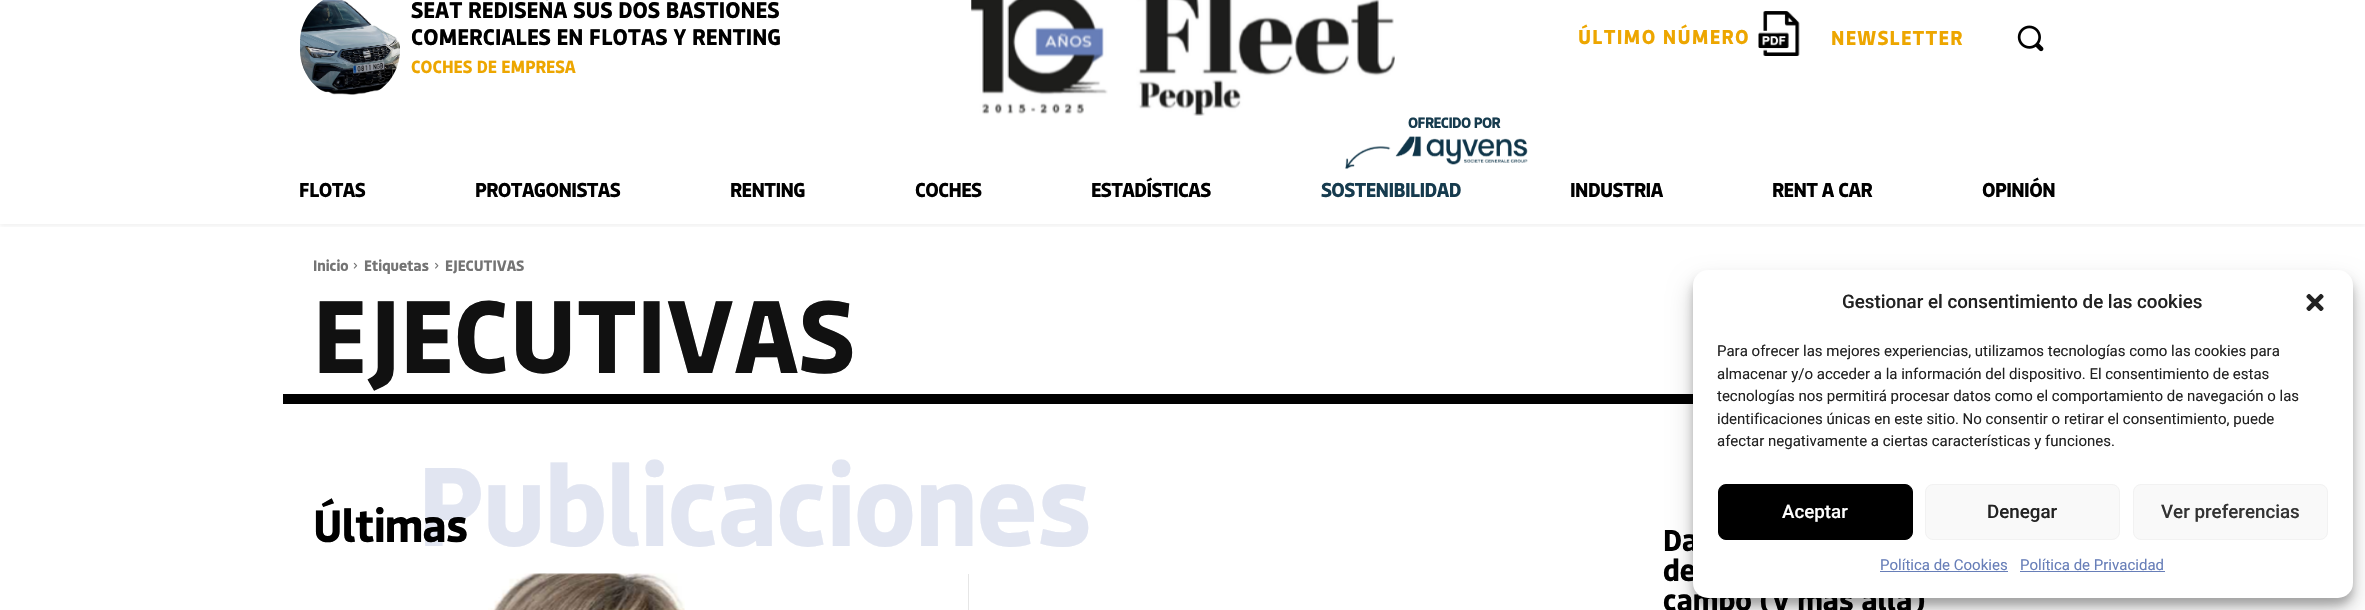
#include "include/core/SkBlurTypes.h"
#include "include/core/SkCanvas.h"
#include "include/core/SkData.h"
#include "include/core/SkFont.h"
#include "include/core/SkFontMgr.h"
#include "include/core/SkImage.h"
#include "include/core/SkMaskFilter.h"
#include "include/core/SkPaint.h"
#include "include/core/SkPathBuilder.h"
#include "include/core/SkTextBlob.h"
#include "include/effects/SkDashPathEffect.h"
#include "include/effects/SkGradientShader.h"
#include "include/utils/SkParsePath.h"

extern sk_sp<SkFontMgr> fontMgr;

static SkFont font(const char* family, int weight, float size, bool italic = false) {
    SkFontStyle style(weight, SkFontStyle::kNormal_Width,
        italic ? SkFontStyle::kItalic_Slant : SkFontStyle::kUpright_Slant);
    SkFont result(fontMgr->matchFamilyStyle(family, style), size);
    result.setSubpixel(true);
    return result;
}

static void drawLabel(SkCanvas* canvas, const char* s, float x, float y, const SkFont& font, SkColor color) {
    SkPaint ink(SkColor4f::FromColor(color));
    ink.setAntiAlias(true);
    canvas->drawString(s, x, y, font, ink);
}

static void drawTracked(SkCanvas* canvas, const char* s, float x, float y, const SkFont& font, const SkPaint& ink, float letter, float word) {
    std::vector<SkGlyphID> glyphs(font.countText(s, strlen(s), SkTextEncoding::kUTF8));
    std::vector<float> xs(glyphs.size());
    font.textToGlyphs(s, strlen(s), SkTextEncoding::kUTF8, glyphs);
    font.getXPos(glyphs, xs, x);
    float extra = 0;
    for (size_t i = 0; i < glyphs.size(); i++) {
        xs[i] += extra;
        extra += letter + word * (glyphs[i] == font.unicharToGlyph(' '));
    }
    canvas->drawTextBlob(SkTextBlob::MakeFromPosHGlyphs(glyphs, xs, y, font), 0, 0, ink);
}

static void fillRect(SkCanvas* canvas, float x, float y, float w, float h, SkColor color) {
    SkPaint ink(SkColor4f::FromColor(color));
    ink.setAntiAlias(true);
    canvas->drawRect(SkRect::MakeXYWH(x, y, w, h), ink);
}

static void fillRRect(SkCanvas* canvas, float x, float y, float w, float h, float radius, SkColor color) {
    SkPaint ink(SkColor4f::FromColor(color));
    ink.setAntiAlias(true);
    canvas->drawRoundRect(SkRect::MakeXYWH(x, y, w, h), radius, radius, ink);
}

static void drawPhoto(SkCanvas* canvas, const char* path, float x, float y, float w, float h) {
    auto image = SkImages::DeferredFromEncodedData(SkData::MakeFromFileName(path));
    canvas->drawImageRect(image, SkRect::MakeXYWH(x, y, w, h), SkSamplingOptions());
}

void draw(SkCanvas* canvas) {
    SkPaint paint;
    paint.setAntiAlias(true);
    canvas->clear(0xFFFFFFFF);
    drawPhoto(canvas, "assets/img1.png", 300, 0, 100, 95);
    SkFont font1 = font("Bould", 700, 22.5f);
    drawLabel(canvas, "SEAT REDISEÑA SUS DOS BASTIONES", 411, 18, font1, 0xFF000000);
    drawLabel(canvas, "COMERCIALES EN FLOTAS Y RENTING", 411, 45, font1, 0xFF000000);
    SkFont font2 = font("Bould", 700, 17.5f);
    drawLabel(canvas, "COCHES DE EMPRESA", 411, 73, font2, 0xFFEDA600);
    drawPhoto(canvas, "assets/img2.png", 971, 0, 424, 116);
    SkFont font3 = font("Bould", 700, 20);
    paint.setColor(0xFFEDA600);
    drawTracked(canvas, "ÚLTIMO NÚMERO", 1578, 44, font3, paint, 1.25f, 0);
    drawPhoto(canvas, "assets/img3.png", 1758, 11, 42, 45);
    drawTracked(canvas, "NEWSLETTER", 1831, 45, font3, paint, 1.25f, 0);
    drawPhoto(canvas, "assets/img4.png", 2017, 25, 27, 27);
    canvas->save();
    canvas->clipRect(SkRect::MakeXYWH(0, 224, 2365, 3));
    paint.setColor(0x0F000000);
    paint.setMaskFilter(SkMaskFilter::MakeBlur(kNormal_SkBlurStyle, 2.5f));
    canvas->drawRect(SkRect::MakeXYWH(0, 158, 2365, 68), paint);
    paint.setMaskFilter(nullptr);
    canvas->restore();
    paint.setColor(0xFF000000);
    drawTracked(canvas, "FLOTAS", 299, 197, font3, paint, -0.6f, 0);
    drawTracked(canvas, "PROTAGONISTAS", 475, 197, font3, paint, -0.6f, 0);
    drawTracked(canvas, "RENTING", 730, 197, font3, paint, -0.6f, 0);
    drawTracked(canvas, "COCHES", 915, 197, font3, paint, -0.6f, 0);
    drawTracked(canvas, "ESTADÍSTICAS", 1091, 197, font3, paint, -0.6f, 0);
    SkFont font4 = font("Bould", 700, 15);
    paint.setColor(0xFF163B4E);
    drawTracked(canvas, "OFRECIDO POR", 1408, 128, font4, paint, -0.6f, 0);
    drawPhoto(canvas, "assets/img5.png", 1395, 136, 133, 29);
    drawPhoto(canvas, "assets/img6.png", 1345, 146, 46, 23);
    drawTracked(canvas, "SOSTENIBILIDAD", 1321, 197, font3, paint, -0.6f, 0);
    paint.setColor(0xFF000000);
    drawTracked(canvas, "INDUSTRIA", 1570, 197, font3, paint, -0.6f, 0);
    drawTracked(canvas, "RENT A CAR", 1772, 197, font3, paint, -0.6f, 0);
    drawTracked(canvas, "OPINIÓN", 1982, 197, font3, paint, -0.6f, 0);
    fillRect(canvas, 283, 394, 1410, 10, 0xFF000000);
    drawLabel(canvas, "Inicio", 313, 271, font4, 0xFF747474);
    drawPhoto(canvas, "assets/img7.png", 353, 262, 5, 7);
    drawLabel(canvas, "Etiquetas", 364, 271, font4, 0xFF747474);
    drawPhoto(canvas, "assets/img8.png", 435, 262, 4, 7);
    drawLabel(canvas, "EJECUTIVAS", 445, 271, font4, 0xFF747474);
    SkFont font5 = font("Bould", 700, 102.5f);
    drawLabel(canvas, "EJECUTIVAS", 313, 373, font5, 0xFF111111);
    SkFont font6 = font("Bould", 700, 111.25f);
    paint.setColor(0xFFE1E5F1);
    drawTracked(canvas, "Publicaciones", 418, 546, font6, paint, -0.75f, 0);
    SkFont font7 = font("Bould", 700, 45);
    paint.setColor(0xFF000000);
    drawTracked(canvas, "Últimas", 313, 542, font7, paint, -0.75f, 0);
    fillRect(canvas, 968, 574, 1, 36, 0xFFE6E6E6);
    drawPhoto(canvas, "assets/img9.png", 488, 573, 197, 37);
    SkFont font8 = font("Bould", 700, 30);
    drawLabel(canvas, "Da", 1663, 551, font8, 0xFF000000);
    drawLabel(canvas, "de", 1663, 581, font8, 0xFF000000);
    drawLabel(canvas, "campo (y más allá)", 1663, 611, font8, 0xFF000000);
    paint.setColor(0x3B000000);
    paint.setMaskFilter(SkMaskFilter::MakeBlur(kNormal_SkBlurStyle, 4));
    canvas->drawRoundRect(SkRect::MakeXYWH(1693, 278, 660, 327), 15, 15, paint);
    paint.setMaskFilter(nullptr);
    paint.setColor(0x30000000);
    paint.setMaskFilter(SkMaskFilter::MakeBlur(kNormal_SkBlurStyle, 12.5f));
    canvas->drawRoundRect(SkRect::MakeXYWH(1693, 283, 660, 327), 15, 15, paint);
    paint.setMaskFilter(nullptr);
    fillRRect(canvas, 1693, 270, 660, 328, 15, 0xFFFFFFFF);
    SkFont font9 = font("Roboto", 500, 18.75f);
    drawLabel(canvas, "Gestionar el consentimiento de las cookies", 1842, 308, font9, 0xFF222222);
    drawPhoto(canvas, "assets/img10.png", 2306, 293, 18, 18);
    SkFont font10 = font("Roboto", 400, 15);
    drawLabel(canvas, "Para ofrecer las mejores experiencias, utilizamos tecnologías como las cookies para", 1717, 356, font10, 0xFF222222);
    drawLabel(canvas, "almacenar y/o acceder a la información del dispositivo. El consentimiento de estas", 1717, 379, font10, 0xFF222222);
    drawLabel(canvas, "tecnologías nos permitirá procesar datos como el comportamiento de navegación o las", 1717, 401, font10, 0xFF222222);
    drawLabel(canvas, "identificaciones únicas en este sitio. No consentir o retirar el consentimiento, puede", 1717, 424, font10, 0xFF222222);
    drawLabel(canvas, "afectar negativamente a ciertas características y funciones.", 1717, 446, font10, 0xFF222222);
    paint.setColor(0xFF000000);
    canvas->drawRoundRect(SkRect::MakeXYWH(1718.5f, 484.5f, 194, 55), 7.5f, 7.5f, paint);
    paint.setStroke(true);
    paint.setStrokeWidth(1);
    canvas->drawRoundRect(SkRect::MakeXYWH(1718.5f, 484.5f, 194, 55), 7.5f, 7.5f, paint);
    drawLabel(canvas, "Aceptar", 1782, 518, font9, 0xFFFFFFFF);
    paint.setStroke(false);
    paint.setColor(0xFFF9F9F9);
    canvas->drawRoundRect(SkRect::MakeXYWH(1925.5f, 484.5f, 194, 55), 7.5f, 7.5f, paint);
    paint.setStroke(true);
    paint.setColor(0xFFF2F2F2);
    canvas->drawRoundRect(SkRect::MakeXYWH(1925.5f, 484.5f, 194, 55), 7.5f, 7.5f, paint);
    drawLabel(canvas, "Denegar", 1987, 518, font9, 0xFF222222);
    paint.setStroke(false);
    paint.setColor(0xFFF9F9F9);
    canvas->drawRoundRect(SkRect::MakeXYWH(2133.5f, 484.5f, 194, 55), 7.5f, 7.5f, paint);
    paint.setStroke(true);
    paint.setColor(0xFFF2F2F2);
    canvas->drawRoundRect(SkRect::MakeXYWH(2133.5f, 484.5f, 194, 55), 7.5f, 7.5f, paint);
    drawLabel(canvas, "Ver preferencias", 2161, 518, font9, 0xFF333333);
    drawLabel(canvas, "Política de Cookies", 1880, 570, font10, 0xFF677EB8);
    fillRect(canvas, 1880, 571, 128, 1, 0xFF677EB8);
    drawLabel(canvas, "Política de Privacidad", 2020, 570, font10, 0xFF677EB8);
    fillRect(canvas, 2020, 571, 145, 1, 0xFF677EB8);
}
